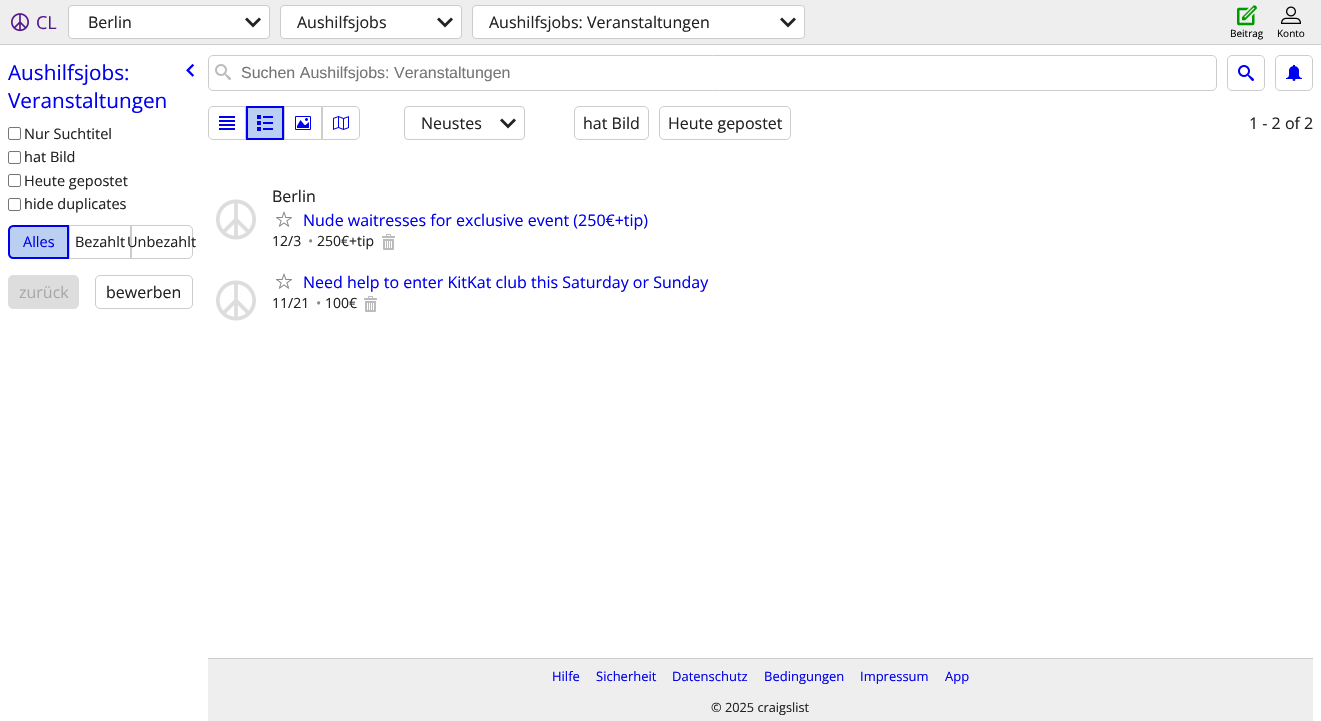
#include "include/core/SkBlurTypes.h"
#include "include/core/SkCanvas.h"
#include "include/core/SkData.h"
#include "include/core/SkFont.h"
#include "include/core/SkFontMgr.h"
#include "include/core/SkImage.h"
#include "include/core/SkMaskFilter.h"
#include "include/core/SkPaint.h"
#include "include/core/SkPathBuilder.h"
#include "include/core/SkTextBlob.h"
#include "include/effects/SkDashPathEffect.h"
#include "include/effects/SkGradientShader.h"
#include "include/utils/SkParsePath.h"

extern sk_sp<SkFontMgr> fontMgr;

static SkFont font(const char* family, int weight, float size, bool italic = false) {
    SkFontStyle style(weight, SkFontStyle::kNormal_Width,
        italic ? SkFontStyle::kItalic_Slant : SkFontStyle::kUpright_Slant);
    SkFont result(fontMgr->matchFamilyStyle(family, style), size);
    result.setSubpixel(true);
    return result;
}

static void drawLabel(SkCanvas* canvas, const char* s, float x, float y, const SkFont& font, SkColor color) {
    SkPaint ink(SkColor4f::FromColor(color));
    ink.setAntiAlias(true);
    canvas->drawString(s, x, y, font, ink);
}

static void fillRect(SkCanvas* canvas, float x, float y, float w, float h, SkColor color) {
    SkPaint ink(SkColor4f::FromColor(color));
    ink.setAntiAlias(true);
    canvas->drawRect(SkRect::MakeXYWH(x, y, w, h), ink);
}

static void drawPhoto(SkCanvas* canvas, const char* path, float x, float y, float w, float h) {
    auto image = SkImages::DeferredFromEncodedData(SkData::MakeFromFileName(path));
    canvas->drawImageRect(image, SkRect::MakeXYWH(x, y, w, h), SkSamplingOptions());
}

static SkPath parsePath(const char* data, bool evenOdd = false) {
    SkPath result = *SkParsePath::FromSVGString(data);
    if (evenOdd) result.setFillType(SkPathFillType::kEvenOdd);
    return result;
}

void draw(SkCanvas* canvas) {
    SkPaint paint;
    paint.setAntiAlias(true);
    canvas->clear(0xFFFFFFFF);
    fillRect(canvas, 0, 0, 1321, 44, 0xFFEEEEEE);
    fillRect(canvas, 0, 44, 1321, 1, 0xFFCCCCCC);
    drawPhoto(canvas, "assets/img1.png", 11, 13, 18, 19);
    SkFont font1 = font("Open Sans", 400, 18);
    drawLabel(canvas, "CL", 36, 29, font1, 0xFF551A8B);
    paint.setColor(0xFFFFFFFF);
    canvas->drawRoundRect(SkRect::MakeXYWH(68.5f, 5.5f, 201, 33), 3.5f, 3.5f, paint);
    paint.setStroke(true);
    paint.setStrokeWidth(1);
    paint.setColor(0xFFCCCCCC);
    canvas->drawRoundRect(SkRect::MakeXYWH(68.5f, 5.5f, 201, 33), 3.5f, 3.5f, paint);
    SkFont font2 = font("Open Sans", 400, 16);
    drawLabel(canvas, "Berlin", 88, 28, font2, 0xFF222222);
    drawPhoto(canvas, "assets/img2.png", 245, 17, 16, 11);
    paint.setStroke(false);
    paint.setColor(0xFFFFFFFF);
    canvas->drawRoundRect(SkRect::MakeXYWH(280.5f, 5.5f, 181, 33), 3.5f, 3.5f, paint);
    paint.setStroke(true);
    paint.setColor(0xFFCCCCCC);
    canvas->drawRoundRect(SkRect::MakeXYWH(280.5f, 5.5f, 181, 33), 3.5f, 3.5f, paint);
    drawLabel(canvas, "Aushilfsjobs", 297, 28, font2, 0xFF222222);
    drawPhoto(canvas, "assets/img2.png", 437, 17, 16, 11);
    paint.setStroke(false);
    paint.setColor(0xFFFFFFFF);
    canvas->drawRoundRect(SkRect::MakeXYWH(472.5f, 5.5f, 332, 33), 3.5f, 3.5f, paint);
    paint.setStroke(true);
    paint.setColor(0xFFCCCCCC);
    canvas->drawRoundRect(SkRect::MakeXYWH(472.5f, 5.5f, 332, 33), 3.5f, 3.5f, paint);
    drawLabel(canvas, "Aushilfsjobs: Veranstaltungen", 489, 28, font2, 0xFF222222);
    drawPhoto(canvas, "assets/img2.png", 780, 17, 16, 11);
    drawPhoto(canvas, "assets/img3.png", 1237, 5, 20, 21);
    SkFont font3 = font("Open Sans", 400, 10);
    drawLabel(canvas, "Beitrag", 1230, 37, font3, 0xFF000000);
    drawPhoto(canvas, "assets/img4.png", 1281, 6, 20, 18);
    drawLabel(canvas, "Konto", 1277, 37, font3, 0xFF000000);
    SkFont font4 = font("Open Sans", 400, 20.75f);
    drawLabel(canvas, "Aushilfsjobs:", 8, 80, font4, 0xFF0000EE);
    drawLabel(canvas, "Veranstaltungen", 8, 108, font4, 0xFF0000EE);
    drawPhoto(canvas, "assets/img5.png", 186, 63, 9, 14);
    paint.setColor(0xFF767676);
    canvas->drawRoundRect(SkRect::MakeXYWH(8.5f, 127.5f, 12, 12), 1.5f, 1.5f, paint);
    SkFont font5 = font("Open Sans", 400, 14.5f);
    drawLabel(canvas, "Nur Suchtitel", 24, 139, font5, 0xFF222222);
    canvas->drawRoundRect(SkRect::MakeXYWH(8.5f, 151.5f, 12, 12), 1.5f, 1.5f, paint);
    drawLabel(canvas, "hat Bild", 24, 162, font5, 0xFF222222);
    canvas->drawRoundRect(SkRect::MakeXYWH(8.5f, 174.5f, 12, 12), 1.5f, 1.5f, paint);
    drawLabel(canvas, "Heute gepostet", 24, 186, font5, 0xFF222222);
    canvas->drawRoundRect(SkRect::MakeXYWH(8.5f, 198.5f, 12, 12), 1.5f, 1.5f, paint);
    drawLabel(canvas, "hide duplicates", 24, 209, font5, 0xFF222222);
    paint.setStroke(false);
    paint.setColor(0xFFBACFF2);
    canvas->drawPath(parsePath("M13 226H68V258H13C11 258 9 256 9 254V230C9 228 11 226 13 226Z"), paint);
    paint.setStroke(true);
    paint.setStrokeWidth(2);
    paint.setColor(0xFF0000EE);
    canvas->drawPath(parsePath("M13 226H68V258H13C11 258 9 256 9 254V230C9 228 11 226 13 226Z"), paint);
    drawLabel(canvas, "Alles", 23, 247, font5, 0xFF0000EE);
    paint.setStrokeWidth(1);
    paint.setColor(0xFFCCCCCC);
    canvas->drawRect(SkRect::MakeXYWH(69.5f, 225.5f, 61, 33), paint);
    drawLabel(canvas, "Bezahlt", 75, 247, font5, 0xFF222222);
    canvas->drawPath(parsePath("M131.5 225.5H188C190.5 225.5 192.5 227.5 192.5 230V254C192.5 256.5 190.5 258.5 188 258.5H131.5Z"), paint);
    drawLabel(canvas, "Unbezahlt", 127, 247, font5, 0xFF222222);
    paint.setStroke(false);
    paint.setColor(0xFFDDDDDD);
    canvas->drawRoundRect(SkRect::MakeXYWH(8.5f, 275.5f, 70, 33), 4.5f, 4.5f, paint);
    paint.setStroke(true);
    canvas->drawRoundRect(SkRect::MakeXYWH(8.5f, 275.5f, 70, 33), 4.5f, 4.5f, paint);
    drawLabel(canvas, "zurück", 19, 298, font2, 0xFFA9A9A9);
    paint.setColor(0xFFCCCCCC);
    canvas->drawRoundRect(SkRect::MakeXYWH(95.5f, 275.5f, 97, 33), 4.5f, 4.5f, paint);
    drawLabel(canvas, "bewerben", 106, 298, font2, 0xFF222222);
    canvas->drawRoundRect(SkRect::MakeXYWH(208.5f, 55.5f, 1008, 35), 4.5f, 4.5f, paint);
    drawPhoto(canvas, "assets/img6.png", 215, 64, 16, 16);
    SkFont font6 = font("Liberation Sans", 400, 16);
    drawLabel(canvas, "Suchen Aushilfsjobs: Veranstaltungen", 241, 78, font6, 0xFF757575);
    canvas->drawRoundRect(SkRect::MakeXYWH(1227.5f, 55.5f, 37, 35), 4.5f, 4.5f, paint);
    drawPhoto(canvas, "assets/img7.png", 1238, 65, 16, 16);
    canvas->drawRoundRect(SkRect::MakeXYWH(1275.5f, 55.5f, 37, 35), 4.5f, 4.5f, paint);
    drawPhoto(canvas, "assets/img8.png", 1286, 65, 16, 16);
    canvas->drawPath(parsePath("M213 106.5H245.5V139.5H213C210.5 139.5 208.5 137.5 208.5 135V111C208.5 108.5 210.5 106.5 213 106.5Z"), paint);
    drawPhoto(canvas, "assets/img9.png", 219, 116, 16, 14);
    paint.setStroke(false);
    paint.setColor(0xFFBACFF2);
    canvas->drawRect(SkRect::MakeXYWH(247, 107, 36, 32), paint);
    paint.setStroke(true);
    paint.setStrokeWidth(2);
    paint.setColor(0xFF0000EE);
    canvas->drawRect(SkRect::MakeXYWH(247, 107, 36, 32), paint);
    drawPhoto(canvas, "assets/img10.png", 257, 115, 16, 16);
    paint.setStrokeWidth(1);
    paint.setColor(0xFFCCCCCC);
    canvas->drawRect(SkRect::MakeXYWH(284.5f, 106.5f, 37, 33), paint);
    drawPhoto(canvas, "assets/img11.png", 295, 116, 16, 14);
    canvas->drawPath(parsePath("M322.5 106.5H355C357.5 106.5 359.5 108.5 359.5 111V135C359.5 137.5 357.5 139.5 355 139.5H322.5Z"), paint);
    drawPhoto(canvas, "assets/img12.png", 333, 116, 16, 14);
    canvas->drawRoundRect(SkRect::MakeXYWH(404.5f, 106.5f, 120, 33), 3.5f, 3.5f, paint);
    drawLabel(canvas, "Neustes", 421, 129, font2, 0xFF222222);
    drawPhoto(canvas, "assets/img2.png", 500, 118, 16, 11);
    canvas->drawRoundRect(SkRect::MakeXYWH(574.5f, 106.5f, 74, 33), 4.5f, 4.5f, paint);
    drawLabel(canvas, "hat Bild", 583, 129, font2, 0xFF222222);
    canvas->drawRoundRect(SkRect::MakeXYWH(659.5f, 106.5f, 131, 33), 4.5f, 4.5f, paint);
    drawLabel(canvas, "Heute gepostet", 668, 129, font2, 0xFF222222);
    drawLabel(canvas, "1 - 2 of 2", 1249, 129, font2, 0xFF222222);
    drawPhoto(canvas, "assets/img13.png", 216, 199, 40, 41);
    drawLabel(canvas, "Berlin", 272, 202, font2, 0xFF222222);
    drawPhoto(canvas, "assets/img14.png", 276, 211, 16, 16);
    drawLabel(canvas, "Nude waitresses for exclusive event (250€+tip)", 303, 226, font2, 0xFF0000EE);
    SkFont font7 = font("Open Sans", 400, 14);
    drawLabel(canvas, "12/3", 272, 246, font7, 0xFF222222);
    drawLabel(canvas, "•", 308, 246, font7, 0xFF888888);
    drawLabel(canvas, "250€+tip", 317, 246, font7, 0xFF222222);
    drawPhoto(canvas, "assets/img15.png", 382, 234, 13, 16);
    drawPhoto(canvas, "assets/img13.png", 216, 280, 40, 41);
    drawPhoto(canvas, "assets/img14.png", 276, 273, 16, 16);
    drawLabel(canvas, "Need help to enter KitKat club this Saturday or Sunday", 303, 288, font2, 0xFF0000EE);
    drawLabel(canvas, "11/21", 272, 308, font7, 0xFF222222);
    drawLabel(canvas, "•", 316, 308, font7, 0xFF888888);
    drawLabel(canvas, "100€", 325, 308, font7, 0xFF222222);
    drawPhoto(canvas, "assets/img15.png", 364, 296, 13, 16);
    fillRect(canvas, 208, 659, 1105, 62, 0xFFEEEEEE);
    fillRect(canvas, 208, 658, 1105, 1, 0xFFCCCCCC);
    SkFont font8 = font("Open Sans", 400, 13);
    drawLabel(canvas, "Hilfe", 552, 681, font8, 0xFF0000EE);
    drawLabel(canvas, "Sicherheit", 596, 681, font8, 0xFF0000EE);
    drawLabel(canvas, "Datenschutz", 672, 681, font8, 0xFF0000EE);
    drawLabel(canvas, "Bedingungen", 764, 681, font8, 0xFF0000EE);
    drawLabel(canvas, "Impressum", 860, 681, font8, 0xFF0000EE);
    drawLabel(canvas, "App", 945, 681, font8, 0xFF0000EE);
    SkFont font9 = font("Open Sans", 400, 12.75f);
    drawLabel(canvas, "© 2025 craigslist", 711, 712, font9, 0xFF222222);
}
